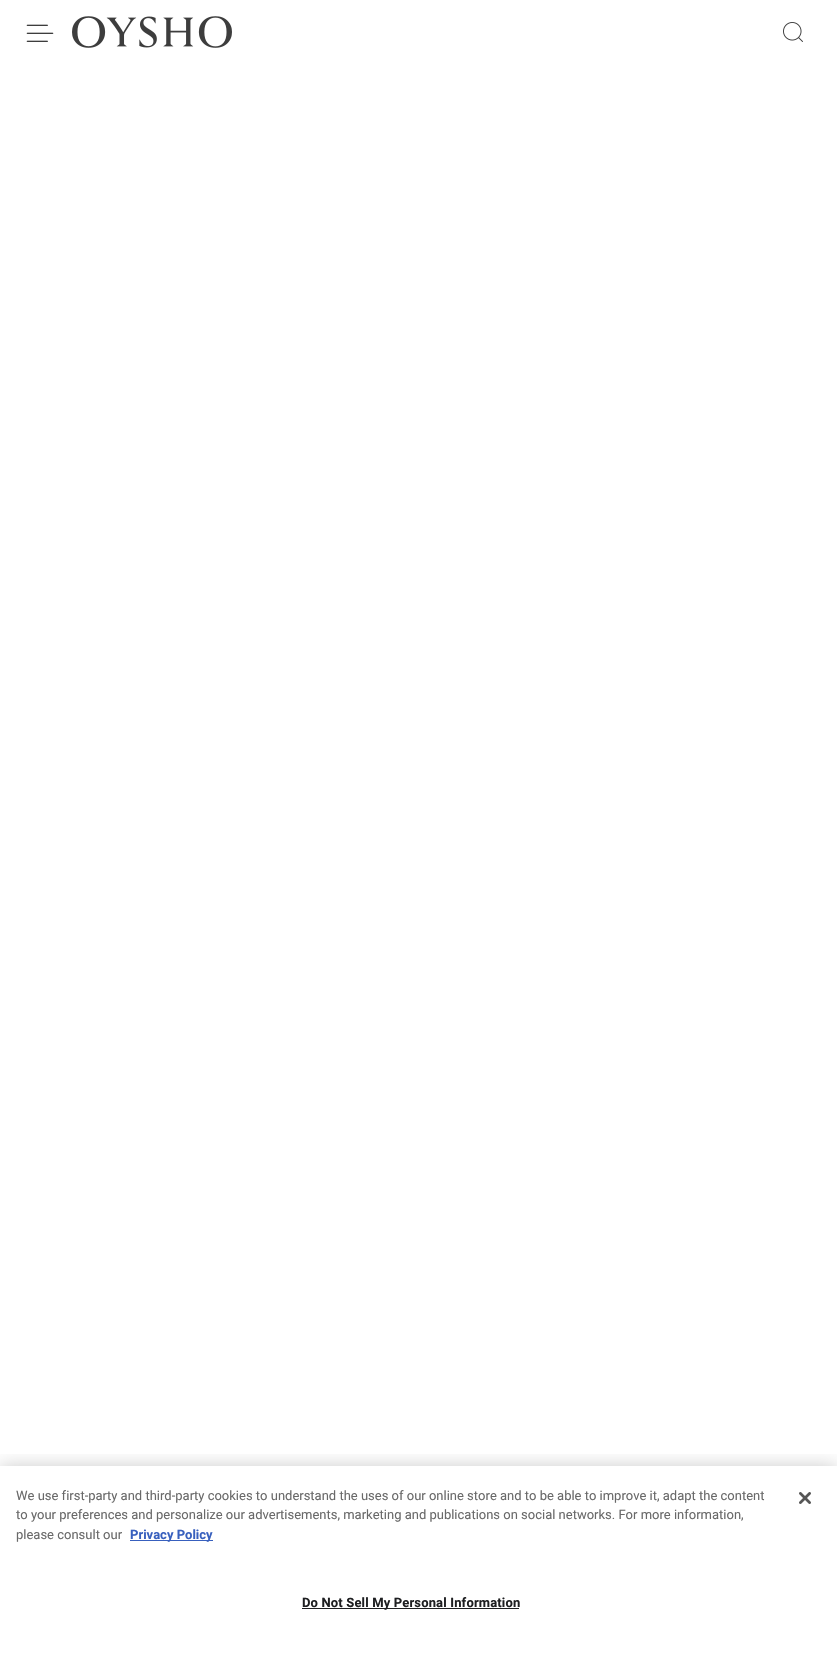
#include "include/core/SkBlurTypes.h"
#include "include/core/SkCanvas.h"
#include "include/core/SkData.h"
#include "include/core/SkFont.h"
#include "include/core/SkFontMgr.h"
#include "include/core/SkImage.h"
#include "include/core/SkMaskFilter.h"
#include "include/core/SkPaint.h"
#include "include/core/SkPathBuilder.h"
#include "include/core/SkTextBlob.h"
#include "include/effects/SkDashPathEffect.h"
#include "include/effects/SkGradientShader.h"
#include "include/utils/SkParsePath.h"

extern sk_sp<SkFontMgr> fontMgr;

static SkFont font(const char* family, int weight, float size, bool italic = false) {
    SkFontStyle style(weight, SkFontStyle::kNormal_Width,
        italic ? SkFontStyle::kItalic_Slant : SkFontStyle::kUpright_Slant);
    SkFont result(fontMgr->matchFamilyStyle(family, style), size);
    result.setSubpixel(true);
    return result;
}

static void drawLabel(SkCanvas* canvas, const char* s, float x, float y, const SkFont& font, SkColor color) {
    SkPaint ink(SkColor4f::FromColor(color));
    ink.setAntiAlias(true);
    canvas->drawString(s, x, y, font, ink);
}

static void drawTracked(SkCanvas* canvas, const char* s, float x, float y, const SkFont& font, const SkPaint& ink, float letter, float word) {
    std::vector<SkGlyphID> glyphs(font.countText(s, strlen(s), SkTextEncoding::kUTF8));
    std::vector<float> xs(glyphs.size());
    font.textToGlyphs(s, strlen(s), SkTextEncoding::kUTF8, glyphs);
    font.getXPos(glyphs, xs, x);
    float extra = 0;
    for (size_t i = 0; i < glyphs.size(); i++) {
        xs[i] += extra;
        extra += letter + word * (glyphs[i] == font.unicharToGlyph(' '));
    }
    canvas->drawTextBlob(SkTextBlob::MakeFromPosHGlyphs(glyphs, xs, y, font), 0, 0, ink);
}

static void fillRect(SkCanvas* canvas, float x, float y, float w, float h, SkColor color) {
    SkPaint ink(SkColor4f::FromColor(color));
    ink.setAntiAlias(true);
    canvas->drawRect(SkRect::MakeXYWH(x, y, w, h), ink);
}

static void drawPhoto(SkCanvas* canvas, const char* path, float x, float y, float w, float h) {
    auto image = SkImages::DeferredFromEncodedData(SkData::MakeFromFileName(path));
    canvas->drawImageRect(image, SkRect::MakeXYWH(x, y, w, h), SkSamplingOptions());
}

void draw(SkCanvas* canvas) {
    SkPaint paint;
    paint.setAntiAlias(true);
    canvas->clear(0xFFFFFFFF);
    drawPhoto(canvas, "assets/img1.png", 26, 24, 28, 18);
    drawPhoto(canvas, "assets/img2.png", 72, 16, 160, 32);
    drawPhoto(canvas, "assets/img3.png", 783, 22, 20, 20);
    canvas->save();
    canvas->clipRect(SkRect::MakeXYWH(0, 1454, 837, 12));
    paint.setColor(0x33000000);
    paint.setMaskFilter(SkMaskFilter::MakeBlur(kNormal_SkBlurStyle, 9));
    canvas->drawRect(SkRect::MakeXYWH(0, 1466, 837, 189), paint);
    paint.setMaskFilter(nullptr);
    canvas->restore();
    SkFont font1 = font("Roboto", 400, 13);
    drawLabel(canvas, "We use first-party and third-party cookies to understand the uses of our online store and to be able to improve it, adapt the content", 16, 1500, font1, 0xFF696969);
    drawLabel(canvas, "to your preferences and personalize our advertisements, marketing and publications on social networks. For more information,", 16, 1519, font1, 0xFF696969);
    drawLabel(canvas, "please consult our", 16, 1539, font1, 0xFF696969);
    fillRect(canvas, 130, 1540, 83, 1, 0xFF3860BE);
    SkFont font2 = font("Roboto", 700, 13);
    drawLabel(canvas, "Privacy Policy", 130, 1539, font2, 0xFF3860BE);
    fillRect(canvas, 302, 1608, 217, 1, 0xFF1E1F21);
    paint.setColor(0xFF1E1F21);
    drawTracked(canvas, "Do Not Sell My Personal Information", 302, 1607, font2, paint, 0.15f, 0);
    drawPhoto(canvas, "assets/img4.png", 799, 1492, 12, 12);
}
